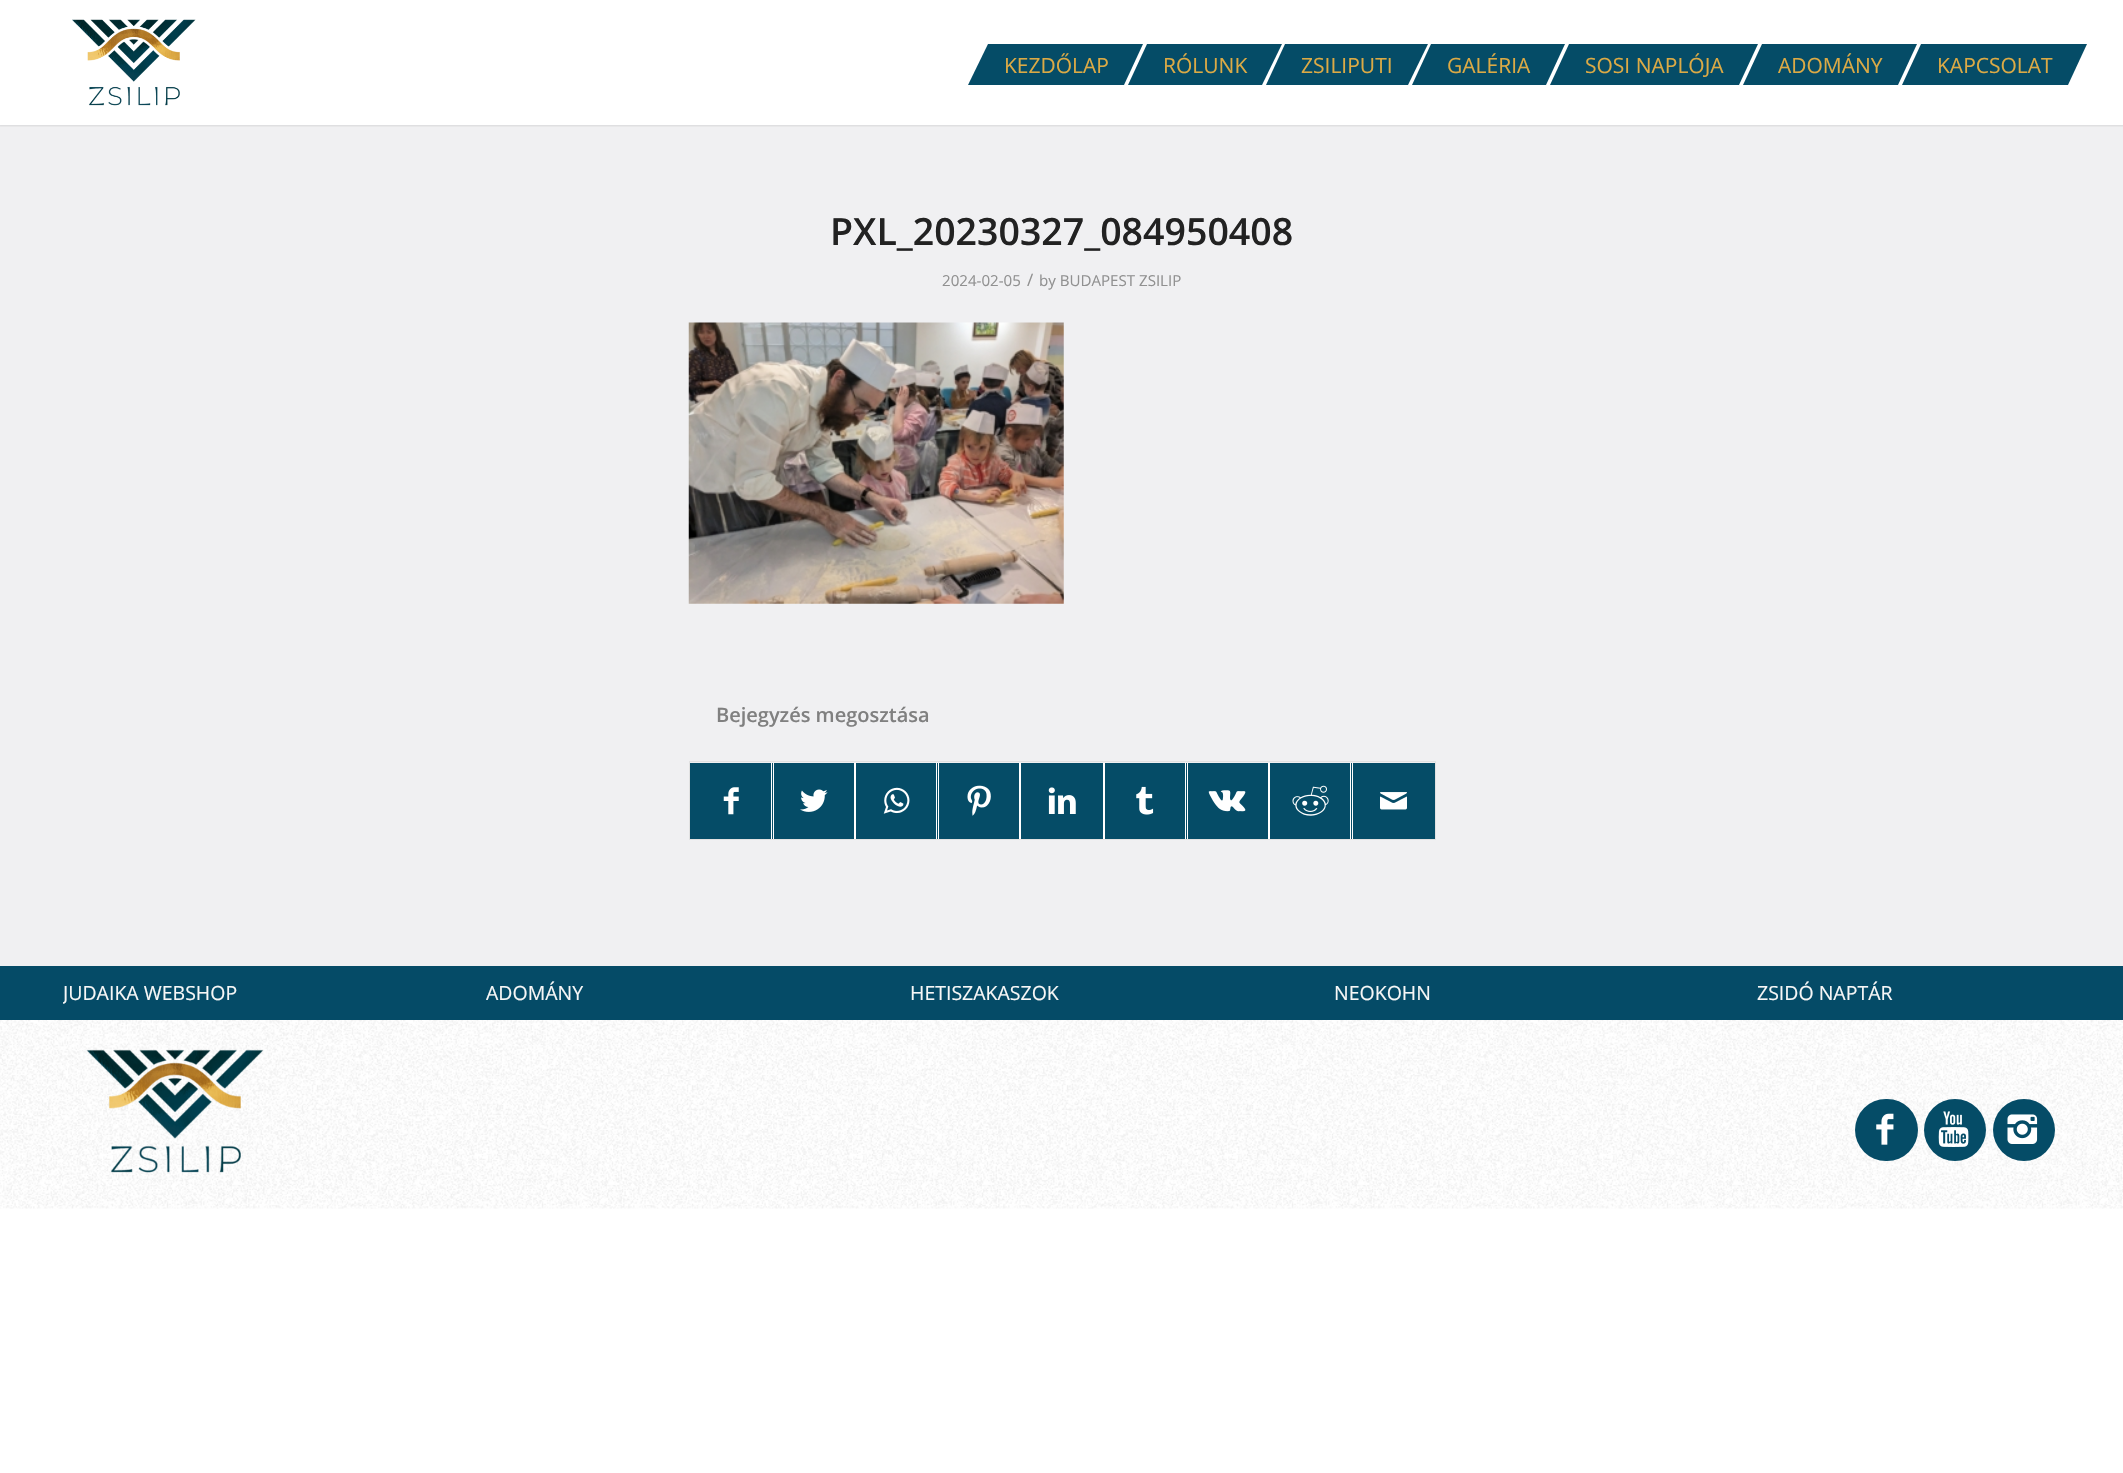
#include "include/core/SkBlurTypes.h"
#include "include/core/SkCanvas.h"
#include "include/core/SkData.h"
#include "include/core/SkFont.h"
#include "include/core/SkFontMgr.h"
#include "include/core/SkImage.h"
#include "include/core/SkMaskFilter.h"
#include "include/core/SkPaint.h"
#include "include/core/SkPathBuilder.h"
#include "include/core/SkTextBlob.h"
#include "include/effects/SkDashPathEffect.h"
#include "include/effects/SkGradientShader.h"
#include "include/utils/SkParsePath.h"

extern sk_sp<SkFontMgr> fontMgr;

static SkFont font(const char* family, int weight, float size, bool italic = false) {
    SkFontStyle style(weight, SkFontStyle::kNormal_Width,
        italic ? SkFontStyle::kItalic_Slant : SkFontStyle::kUpright_Slant);
    SkFont result(fontMgr->matchFamilyStyle(family, style), size);
    result.setSubpixel(true);
    return result;
}

static void drawLabel(SkCanvas* canvas, const char* s, float x, float y, const SkFont& font, SkColor color) {
    SkPaint ink(SkColor4f::FromColor(color));
    ink.setAntiAlias(true);
    canvas->drawString(s, x, y, font, ink);
}

static void fillRect(SkCanvas* canvas, float x, float y, float w, float h, SkColor color) {
    SkPaint ink(SkColor4f::FromColor(color));
    ink.setAntiAlias(true);
    canvas->drawRect(SkRect::MakeXYWH(x, y, w, h), ink);
}

static void fillRRect(SkCanvas* canvas, float x, float y, float w, float h, float radius, SkColor color) {
    SkPaint ink(SkColor4f::FromColor(color));
    ink.setAntiAlias(true);
    canvas->drawRoundRect(SkRect::MakeXYWH(x, y, w, h), radius, radius, ink);
}

static void drawPhoto(SkCanvas* canvas, const char* path, float x, float y, float w, float h) {
    auto image = SkImages::DeferredFromEncodedData(SkData::MakeFromFileName(path));
    canvas->drawImageRect(image, SkRect::MakeXYWH(x, y, w, h), SkSamplingOptions());
}

static SkPath parsePath(const char* data, bool evenOdd = false) {
    SkPath result = *SkParsePath::FromSVGString(data);
    if (evenOdd) result.setFillType(SkPathFillType::kEvenOdd);
    return result;
}

void draw(SkCanvas* canvas) {
    SkPaint paint;
    paint.setAntiAlias(true);
    canvas->clear(0xFFFFFFFF);
    fillRect(canvas, 0, 125, 2123, 841, 0xFFF0F0F2);
    canvas->save();
    canvas->clipRect(SkRect::MakeXYWH(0, 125, 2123, 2));
    paint.setColor(0x1A000000);
    paint.setMaskFilter(SkMaskFilter::MakeBlur(kNormal_SkBlurStyle, 1));
    canvas->drawRect(SkRect::MakeXYWH(-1, -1, 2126, 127), paint);
    paint.setMaskFilter(nullptr);
    canvas->restore();
    drawPhoto(canvas, "assets/img1.png", 72, 19, 124, 87);
    paint.setColor(0xFF054C67);
    canvas->drawPath(parsePath("M988 44H1143L1124 85H968Z"), paint);
    SkFont font1 = font("Open Sans", 400, 21);
    drawLabel(canvas, "KEZDŐLAP", 1004, 73, font1, 0xFFDCAA45);
    canvas->drawPath(parsePath("M1147 44H1282L1262 85H1128Z"), paint);
    drawLabel(canvas, "RÓLUNK", 1163, 73, font1, 0xFFDCAA45);
    canvas->drawPath(parsePath("M1285 44H1428L1408 85H1266Z"), paint);
    drawLabel(canvas, "ZSILIPUTI", 1301, 73, font1, 0xFFDCAA45);
    canvas->drawPath(parsePath("M1431 44H1565L1546 85H1412Z"), paint);
    drawLabel(canvas, "GALÉRIA", 1447, 73, font1, 0xFFDCAA45);
    canvas->drawPath(parsePath("M1569 44H1758L1739 85H1550Z"), paint);
    drawLabel(canvas, "SOSI NAPLÓJA", 1585, 73, font1, 0xFFDCAA45);
    canvas->drawPath(parsePath("M1762 44H1917L1898 85H1743Z"), paint);
    drawLabel(canvas, "ADOMÁNY", 1778, 73, font1, 0xFFDCAA45);
    canvas->drawPath(parsePath("M1921 44H2087L2068 85H1902Z"), paint);
    drawLabel(canvas, "KAPCSOLAT", 1937, 73, font1, 0xFFDCAA45);
    SkFont font2 = font("Open Sans", 600, 37.5f);
    drawLabel(canvas, "PXL_20230327_084950408", 830, 245, font2, 0xFF222222);
    SkFont font3 = font("Open Sans", 400, 15.1f);
    drawLabel(canvas, "2024-02-05", 942, 286, font3, 0xFF919191);
    SkFont font4 = font("Open Sans", 400, 17);
    drawLabel(canvas, "/", 1027, 286, font4, 0xFF919191);
    drawLabel(canvas, "by BUDAPEST ZSILIP", 1039, 286, font3, 0xFF919191);
    drawPhoto(canvas, "assets/img2.png", 688, 322, 376, 282);
    SkFont font5 = font("Open Sans", 600, 20);
    drawLabel(canvas, "Bejegyzés megosztása", 716, 722, font5, 0xFF808080);
    paint.setStroke(true);
    paint.setStrokeWidth(1);
    paint.setColor(0xFFE1E1E1);
    canvas->drawRect(SkRect::MakeXYWH(689.5f, 761.5f, 746, 78), paint);
    fillRect(canvas, 690, 763, 83, 76, 0xFF054C67);
    drawPhoto(canvas, "assets/img3.png", 723, 787, 16, 28);
    canvas->save();
    canvas->clipRect(SkRect::MakeXYWH(690, 763, 745, 76));
    paint.setColor(0xFFFFFFFF);
    canvas->drawRect(SkRect::MakeXYWH(689.5f, 761.5f, 84, 78), paint);
    canvas->restore();
    fillRect(canvas, 774, 763, 80, 76, 0xFF054C67);
    drawPhoto(canvas, "assets/img4.png", 800, 789, 28, 23);
    canvas->save();
    canvas->clipRect(SkRect::MakeXYWH(690, 763, 745, 76));
    canvas->drawRect(SkRect::MakeXYWH(771.5f, 761.5f, 84, 78), paint);
    canvas->restore();
    fillRect(canvas, 856, 763, 82, 76, 0xFF054C67);
    drawPhoto(canvas, "assets/img5.png", 883, 787, 27, 27);
    canvas->save();
    canvas->clipRect(SkRect::MakeXYWH(690, 763, 745, 76));
    canvas->drawRect(SkRect::MakeXYWH(854.5f, 761.5f, 84, 78), paint);
    canvas->restore();
    fillRect(canvas, 939, 763, 80, 76, 0xFF054C67);
    drawPhoto(canvas, "assets/img6.png", 967, 785, 24, 31);
    canvas->save();
    canvas->clipRect(SkRect::MakeXYWH(690, 763, 745, 76));
    canvas->drawRect(SkRect::MakeXYWH(936.5f, 761.5f, 84, 78), paint);
    canvas->restore();
    fillRect(canvas, 1021, 763, 82, 76, 0xFF054C67);
    drawPhoto(canvas, "assets/img7.png", 1048, 787, 28, 27);
    canvas->save();
    canvas->clipRect(SkRect::MakeXYWH(690, 763, 745, 76));
    canvas->drawRect(SkRect::MakeXYWH(1019.5f, 761.5f, 85, 78), paint);
    canvas->restore();
    fillRect(canvas, 1105, 763, 80, 76, 0xFF054C67);
    drawPhoto(canvas, "assets/img8.png", 1136, 786, 18, 29);
    fillRect(canvas, 1186, 763, 82, 76, 0xFF054C67);
    canvas->save();
    canvas->clipRect(SkRect::MakeXYWH(690, 763, 745, 76));
    canvas->drawRect(SkRect::MakeXYWH(1103.5f, 761.5f, 84, 78), paint);
    canvas->restore();
    drawPhoto(canvas, "assets/img9.png", 1208, 790, 38, 22);
    canvas->save();
    canvas->clipRect(SkRect::MakeXYWH(690, 763, 745, 76));
    canvas->drawRect(SkRect::MakeXYWH(1185.5f, 761.5f, 84, 78), paint);
    canvas->restore();
    fillRect(canvas, 1270, 763, 80, 76, 0xFF054C67);
    drawPhoto(canvas, "assets/img10.png", 1292, 785, 37, 31);
    fillRect(canvas, 1351, 763, 84, 76, 0xFF054C67);
    canvas->save();
    canvas->clipRect(SkRect::MakeXYWH(690, 763, 745, 76));
    canvas->drawRect(SkRect::MakeXYWH(1268.5f, 761.5f, 84, 78), paint);
    canvas->restore();
    drawPhoto(canvas, "assets/img11.png", 1380, 792, 27, 18);
    canvas->save();
    canvas->clipRect(SkRect::MakeXYWH(690, 763, 745, 76));
    canvas->drawRect(SkRect::MakeXYWH(1350.5f, 761.5f, 85, 78), paint);
    canvas->restore();
    fillRect(canvas, 0, 966, 2123, 54, 0xFF054B67);
    canvas->save();
    canvas->clipRect(SkRect::MakeXYWH(63, 980, 303, 29));
    SkFont font6 = font("Open Sans", 400, 19.5f);
    drawLabel(canvas, "JUDAIKA WEBSHOP", 63, 1000, font6, 0xFFF7F7F7);
    canvas->restore();
    drawLabel(canvas, "ADOMÁNY", 486, 1000, font6, 0xFFF7F7F7);
    drawLabel(canvas, "HETISZAKASZOK", 910, 1000, font6, 0xFFF7F7F7);
    drawLabel(canvas, "NEOKOHN", 1334, 1000, font6, 0xFFF7F7F7);
    drawLabel(canvas, "ZSIDÓ NAPTÁR", 1757, 1000, font6, 0xFFF7F7F7);
    drawPhoto(canvas, "assets/img12.png", 0, 1020, 2123, 189);
    drawPhoto(canvas, "assets/img13.png", 86, 1049, 178, 124);
    fillRRect(canvas, 1855, 1099, 63, 62, 31, 0xFF054C67);
    drawPhoto(canvas, "assets/img14.png", 1876, 1113, 18, 32);
    paint.setStroke(false);
    paint.setColor(0xFF054C67);
    canvas->drawCircle(1955, 1130, 31, paint);
    drawPhoto(canvas, "assets/img15.png", 1938, 1111, 31, 36);
    canvas->drawCircle(2024, 1130, 31, paint);
    drawPhoto(canvas, "assets/img16.png", 2007, 1114, 31, 30);
}
